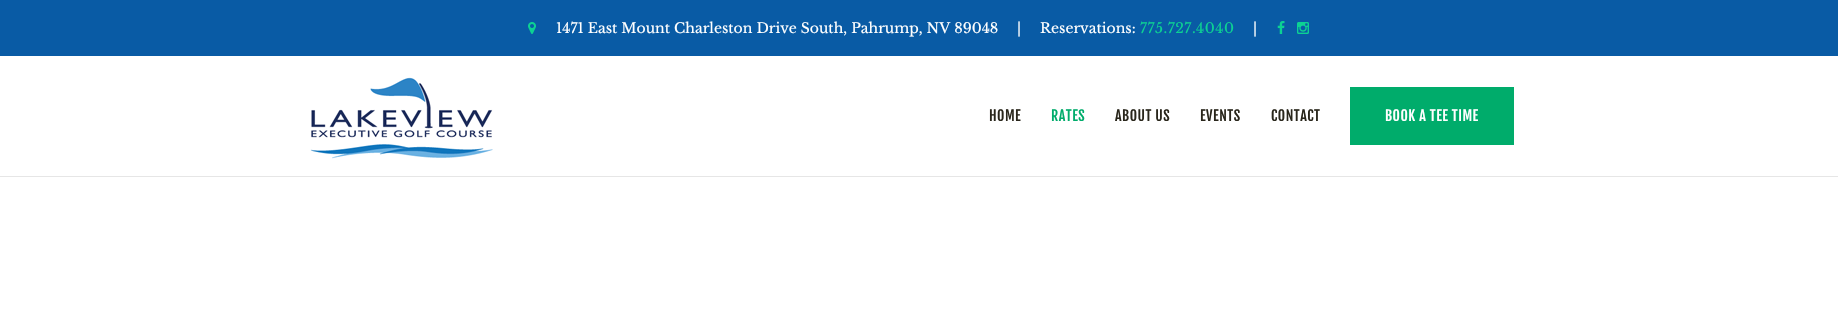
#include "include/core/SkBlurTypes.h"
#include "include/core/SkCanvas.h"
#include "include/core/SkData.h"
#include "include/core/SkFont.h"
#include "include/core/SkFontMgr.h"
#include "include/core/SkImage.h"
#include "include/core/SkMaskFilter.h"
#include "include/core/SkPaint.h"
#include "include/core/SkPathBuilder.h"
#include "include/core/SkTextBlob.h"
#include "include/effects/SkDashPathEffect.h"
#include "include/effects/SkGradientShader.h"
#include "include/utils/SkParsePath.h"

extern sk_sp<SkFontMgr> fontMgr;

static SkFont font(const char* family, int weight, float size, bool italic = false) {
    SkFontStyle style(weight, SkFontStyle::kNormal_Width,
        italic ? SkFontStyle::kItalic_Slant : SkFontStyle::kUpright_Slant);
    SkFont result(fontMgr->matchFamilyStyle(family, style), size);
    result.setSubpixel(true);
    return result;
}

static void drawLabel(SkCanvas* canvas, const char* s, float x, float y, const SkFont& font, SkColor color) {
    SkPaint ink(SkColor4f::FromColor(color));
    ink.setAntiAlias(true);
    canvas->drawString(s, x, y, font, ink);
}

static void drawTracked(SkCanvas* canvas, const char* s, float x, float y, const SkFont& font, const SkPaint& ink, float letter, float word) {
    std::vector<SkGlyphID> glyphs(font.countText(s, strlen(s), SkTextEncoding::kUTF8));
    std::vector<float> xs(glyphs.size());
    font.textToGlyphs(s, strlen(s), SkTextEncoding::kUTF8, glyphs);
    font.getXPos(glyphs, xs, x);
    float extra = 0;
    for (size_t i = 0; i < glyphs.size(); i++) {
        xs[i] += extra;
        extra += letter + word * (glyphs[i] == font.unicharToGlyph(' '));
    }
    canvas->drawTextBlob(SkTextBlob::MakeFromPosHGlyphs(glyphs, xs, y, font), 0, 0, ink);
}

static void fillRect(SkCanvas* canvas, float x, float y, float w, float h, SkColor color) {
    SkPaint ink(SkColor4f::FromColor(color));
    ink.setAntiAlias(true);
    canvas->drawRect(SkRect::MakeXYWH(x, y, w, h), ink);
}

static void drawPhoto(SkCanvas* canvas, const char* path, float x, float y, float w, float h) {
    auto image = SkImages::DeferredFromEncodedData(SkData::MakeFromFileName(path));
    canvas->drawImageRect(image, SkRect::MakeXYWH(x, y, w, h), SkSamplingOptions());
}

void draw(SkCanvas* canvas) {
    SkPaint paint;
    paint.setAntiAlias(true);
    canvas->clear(0xFFFFFFFF);
    fillRect(canvas, 0, 0, 1838, 56, 0xFF095BA5);
    drawPhoto(canvas, "assets/img1.png", 528, 22, 8, 12);
    SkFont font1 = font("Libre Baskerville", 400, 14);
    drawLabel(canvas, "1471 East Mount Charleston Drive South, Pahrump, NV 89048", 556, 33, font1, 0xFFFFFFFF);
    drawLabel(canvas, "|", 1017, 33, font1, 0xFFFFFFFF);
    drawLabel(canvas, "Reservations:", 1040, 33, font1, 0xFFFFFFFF);
    paint.setColor(0xFF0CD293);
    drawTracked(canvas, "775.727.4040", 1140, 33, font1, paint, 0.5f, 0);
    drawLabel(canvas, "|", 1253, 33, font1, 0xFFFFFFFF);
    drawPhoto(canvas, "assets/img2.png", 1277, 21, 8, 13);
    drawPhoto(canvas, "assets/img3.png", 1297, 22, 12, 12);
    fillRect(canvas, 0, 176, 1838, 1, 0xFFE6E6E6);
    drawPhoto(canvas, "assets/img4.png", 310, 77, 183, 82);
    SkFont font2 = font("Fjalla One", 400, 14);
    paint.setColor(0xFF29261B);
    drawTracked(canvas, "HOME", 989, 121, font2, paint, 0.5f, 0);
    paint.setColor(0xFF00AC6B);
    drawTracked(canvas, "RATES", 1051, 121, font2, paint, 0.5f, 0);
    paint.setColor(0xFF29261B);
    drawTracked(canvas, "ABOUT US", 1115, 121, font2, paint, 0.5f, 0);
    drawTracked(canvas, "EVENTS", 1200, 121, font2, paint, 0.5f, 0);
    drawTracked(canvas, "CONTACT", 1271, 121, font2, paint, 0.5f, 0);
    fillRect(canvas, 1350, 87, 164, 58, 0xFF00AC6B);
    paint.setColor(0xFFFFFFFF);
    drawTracked(canvas, "BOOK A TEE TIME", 1385, 121, font2, paint, 0.5f, 0);
}
